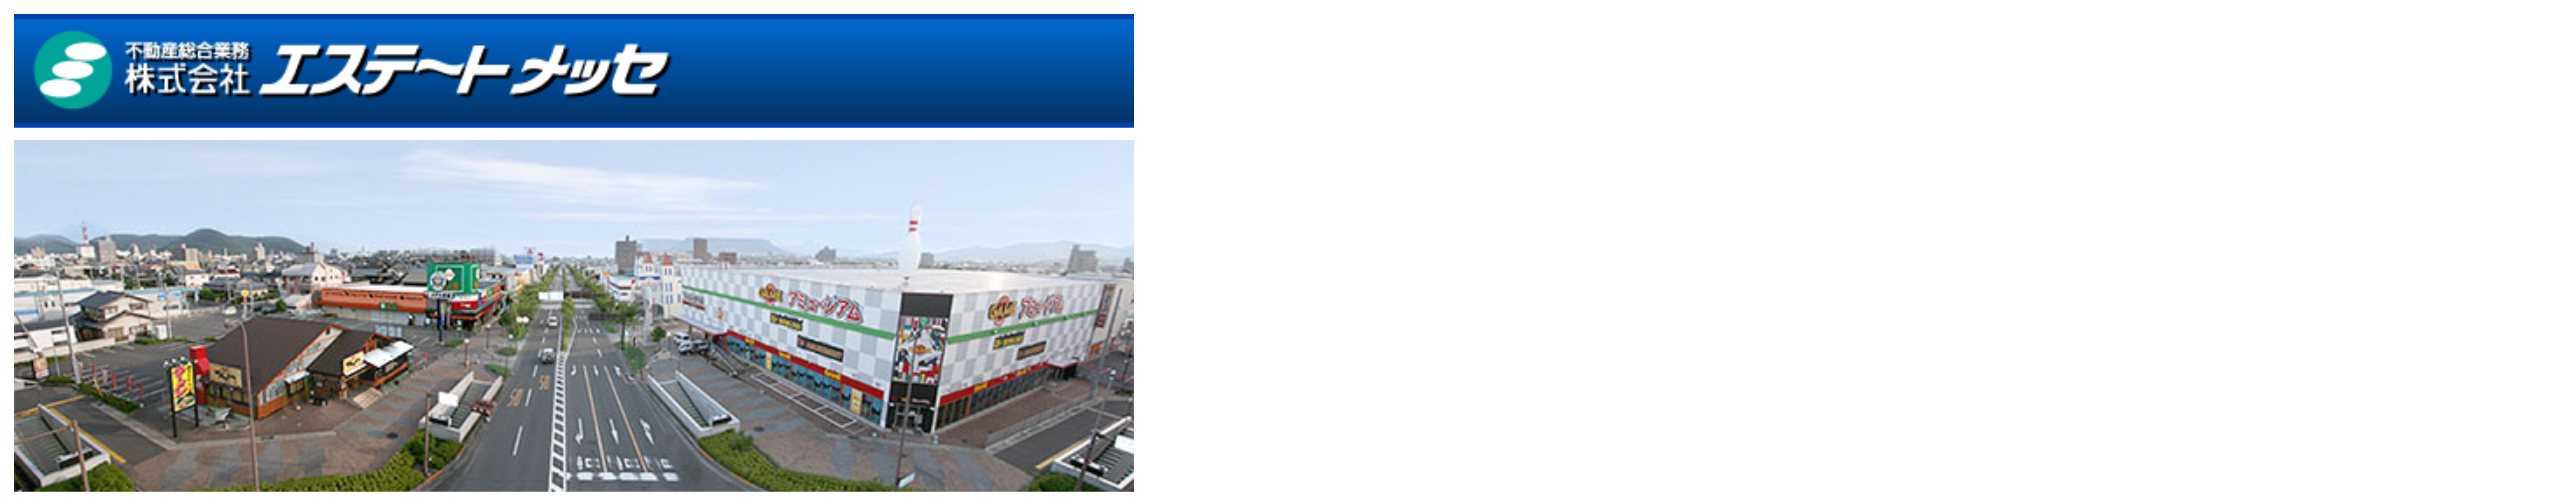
#include "include/core/SkBlurTypes.h"
#include "include/core/SkCanvas.h"
#include "include/core/SkData.h"
#include "include/core/SkFont.h"
#include "include/core/SkFontMgr.h"
#include "include/core/SkImage.h"
#include "include/core/SkMaskFilter.h"
#include "include/core/SkPaint.h"
#include "include/core/SkPathBuilder.h"
#include "include/core/SkTextBlob.h"
#include "include/effects/SkDashPathEffect.h"
#include "include/effects/SkGradientShader.h"
#include "include/utils/SkParsePath.h"

extern sk_sp<SkFontMgr> fontMgr;

static void drawPhoto(SkCanvas* canvas, const char* path, float x, float y, float w, float h) {
    auto image = SkImages::DeferredFromEncodedData(SkData::MakeFromFileName(path));
    canvas->drawImageRect(image, SkRect::MakeXYWH(x, y, w, h), SkSamplingOptions());
}

void draw(SkCanvas* canvas) {
    SkPaint paint;
    paint.setAntiAlias(true);
    canvas->clear(0xFFFFFFFF);
    drawPhoto(canvas, "assets/img1.png", 14, 14, 1120, 114);
    drawPhoto(canvas, "assets/img2.png", 14, 140, 1120, 352);
}
